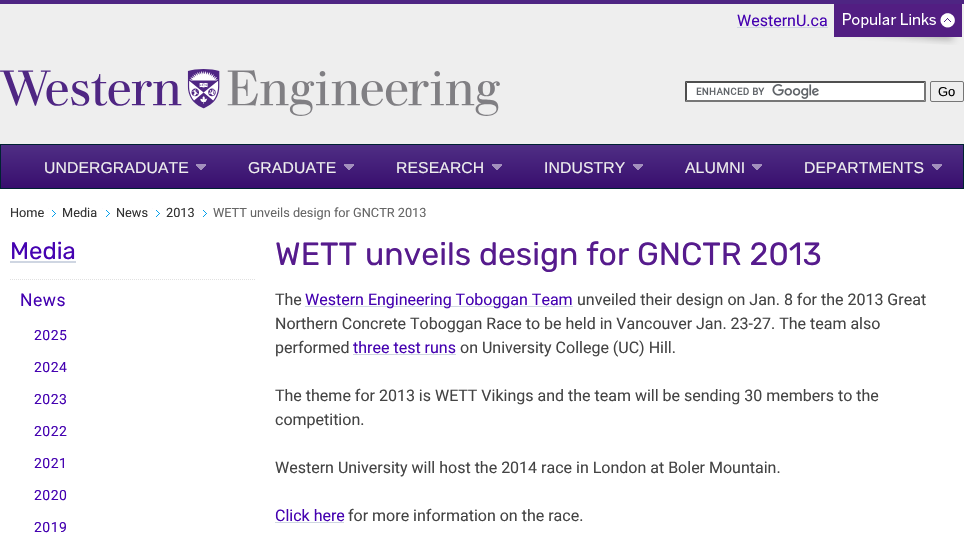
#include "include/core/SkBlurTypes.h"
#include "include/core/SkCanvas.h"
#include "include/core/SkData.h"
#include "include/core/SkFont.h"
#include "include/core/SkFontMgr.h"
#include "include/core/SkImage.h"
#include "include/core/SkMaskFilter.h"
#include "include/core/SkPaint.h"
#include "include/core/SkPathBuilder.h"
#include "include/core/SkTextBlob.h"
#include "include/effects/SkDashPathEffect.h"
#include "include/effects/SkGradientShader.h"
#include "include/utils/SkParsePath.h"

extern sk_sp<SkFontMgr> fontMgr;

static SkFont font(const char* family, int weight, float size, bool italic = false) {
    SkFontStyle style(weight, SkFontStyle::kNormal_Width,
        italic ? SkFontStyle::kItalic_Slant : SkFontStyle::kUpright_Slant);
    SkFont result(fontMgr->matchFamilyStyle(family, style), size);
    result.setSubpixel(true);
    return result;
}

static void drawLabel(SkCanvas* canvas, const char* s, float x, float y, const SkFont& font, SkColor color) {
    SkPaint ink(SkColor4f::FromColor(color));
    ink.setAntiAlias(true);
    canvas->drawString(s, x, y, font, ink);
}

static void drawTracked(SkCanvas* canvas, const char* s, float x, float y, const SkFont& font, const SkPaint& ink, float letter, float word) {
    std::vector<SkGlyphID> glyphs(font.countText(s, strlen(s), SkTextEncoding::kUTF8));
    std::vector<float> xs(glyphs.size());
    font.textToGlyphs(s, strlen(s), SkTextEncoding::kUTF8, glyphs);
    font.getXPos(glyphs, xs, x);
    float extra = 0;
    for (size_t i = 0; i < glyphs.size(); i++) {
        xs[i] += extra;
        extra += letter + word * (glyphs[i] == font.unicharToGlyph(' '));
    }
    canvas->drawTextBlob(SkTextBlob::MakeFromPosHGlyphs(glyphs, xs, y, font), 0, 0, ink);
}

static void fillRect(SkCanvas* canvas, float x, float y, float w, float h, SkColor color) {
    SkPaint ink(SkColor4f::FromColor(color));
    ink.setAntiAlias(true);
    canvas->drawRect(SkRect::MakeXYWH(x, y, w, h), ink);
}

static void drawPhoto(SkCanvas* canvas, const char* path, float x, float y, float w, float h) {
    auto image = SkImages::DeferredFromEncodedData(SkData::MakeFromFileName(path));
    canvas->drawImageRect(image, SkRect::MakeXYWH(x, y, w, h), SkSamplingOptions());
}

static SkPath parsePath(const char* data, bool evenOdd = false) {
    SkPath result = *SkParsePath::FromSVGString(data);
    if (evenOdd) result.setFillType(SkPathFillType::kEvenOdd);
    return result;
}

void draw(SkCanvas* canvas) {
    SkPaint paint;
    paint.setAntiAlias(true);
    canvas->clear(0xFFEEEEEE);
    fillRect(canvas, 0, 0, 964, 4, 0xFF4E2583);
    SkFont font1 = font("Roboto", 400, 16);
    drawLabel(canvas, "WesternU.ca", 737, 26, font1, 0xFF4502B1);
    fillRect(canvas, 737, 27, 91, 1, 0xFFCFD6E2);
    drawPhoto(canvas, "assets/img1.png", 834, 4, 128, 41);
    drawPhoto(canvas, "assets/img2.png", 0, 69, 500, 47);
    fillRect(canvas, 685, 81, 241, 21, 0xFFFFFFFF);
    drawPhoto(canvas, "assets/img3.png", 696, 84, 123, 15);
    paint.setColor(0xFF4F4F4F);
    canvas->drawPath(parsePath("M685 81H926L924 83H687Z"), paint);
    paint.setColor(0xFF767676);
    canvas->drawPath(parsePath("M926 81V102L924 100V83Z"), paint);
    canvas->drawPath(parsePath("M926 102H685L687 100H924Z"), paint);
    paint.setColor(0xFF4F4F4F);
    canvas->drawPath(parsePath("M685 102V81L687 83V100Z"), paint);
    paint.setStroke(true);
    paint.setStrokeWidth(1);
    paint.setColor(0xFF767676);
    canvas->drawRoundRect(SkRect::MakeXYWH(930.5f, 81.5f, 33, 20), 1.5f, 1.5f, paint);
    SkFont font2 = font("Liberation Sans", 400, 13);
    drawLabel(canvas, "Go", 938, 96, font2, 0xFF000000);
    fillRect(canvas, 0, 189, 964, 361, 0xFFFFFFFF);
    paint.setStroke(false);
    {
        const SkColor colors[] = {0xFF4F2E84, 0xFF380E6E};
        const float stops[] = {0, 1};
        const SkPoint ends[] = {{1, 145}, {1, 188}};
        paint.setShader(SkGradientShader::MakeLinear(ends, colors, stops, 2, SkTileMode::kClamp));
        paint.setAlpha(255);
    }
    canvas->drawRect(SkRect::MakeXYWH(1, 145, 962, 43), paint);
    paint.setStroke(true);
    paint.setShader(nullptr);
    paint.setColor(0xFF002232);
    canvas->drawRect(SkRect::MakeXYWH(0.5f, 144.5f, 963, 44), paint);
    drawPhoto(canvas, "assets/img4.png", 196, 164, 10, 6);
    SkFont font3 = font("Liberation Sans", 400, 15.75f);
    paint.setStroke(false);
    paint.setColor(0xFFEEEEEE);
    drawTracked(canvas, "UNDERGRADUATE", 44, 173, font3, paint, 0.1f, 0);
    drawPhoto(canvas, "assets/img4.png", 344, 164, 10, 6);
    drawTracked(canvas, "GRADUATE", 248, 173, font3, paint, 0.1f, 0);
    drawPhoto(canvas, "assets/img4.png", 492, 164, 10, 6);
    drawTracked(canvas, "RESEARCH", 396, 173, font3, paint, 0.1f, 0);
    drawPhoto(canvas, "assets/img4.png", 633, 164, 10, 6);
    drawTracked(canvas, "INDUSTRY", 544, 173, font3, paint, 0.1f, 0);
    drawPhoto(canvas, "assets/img4.png", 752, 164, 10, 6);
    drawTracked(canvas, "ALUMNI", 685, 173, font3, paint, 0.1f, 0);
    drawPhoto(canvas, "assets/img4.png", 932, 164, 10, 6);
    drawTracked(canvas, "DEPARTMENTS", 804, 173, font3, paint, 0.1f, 0);
    drawPhoto(canvas, "assets/img5.png", 47, 208, 9, 9);
    SkFont font4 = font("Roboto", 400, 12.75f);
    drawLabel(canvas, "Home", 10, 217, font4, 0xFF333333);
    drawPhoto(canvas, "assets/img5.png", 101, 208, 9, 9);
    drawLabel(canvas, "Media", 62, 217, font4, 0xFF333333);
    drawPhoto(canvas, "assets/img5.png", 151, 208, 9, 9);
    drawLabel(canvas, "News", 116, 217, font4, 0xFF333333);
    drawPhoto(canvas, "assets/img5.png", 198, 208, 9, 9);
    drawLabel(canvas, "2013", 166, 217, font4, 0xFF333333);
    drawLabel(canvas, "WETT unveils design for GNCTR 2013", 213, 217, font4, 0xFF666666);
    SkFont font5 = font("Rubik", 400, 24);
    drawLabel(canvas, "Media", 10, 259, font5, 0xFF4502B1);
    fillRect(canvas, 10, 261, 66, 2, 0xFFCFD6E2);
    paint.setStroke(true);
    paint.setColor(0xFFE1E1E1);
    paint.setPathEffect(SkDashPathEffect::Make({{1, 1}}, 0));
    canvas->drawPath(parsePath("M10 279.5H255"), paint);
    paint.setPathEffect(nullptr);
    SkFont font6 = font("Roboto", 400, 17.5f);
    paint.setStroke(false);
    paint.setColor(0xFF4502B1);
    drawTracked(canvas, "News", 20, 306, font6, paint, 0.5f, 0);
    SkFont font7 = font("Roboto", 400, 14);
    drawTracked(canvas, "2025", 34, 340, font7, paint, 0.5f, 0);
    drawTracked(canvas, "2024", 34, 372, font7, paint, 0.5f, 0);
    drawTracked(canvas, "2023", 34, 404, font7, paint, 0.5f, 0);
    drawTracked(canvas, "2022", 34, 436, font7, paint, 0.5f, 0);
    drawTracked(canvas, "2021", 34, 468, font7, paint, 0.5f, 0);
    drawTracked(canvas, "2020", 34, 500, font7, paint, 0.5f, 0);
    drawTracked(canvas, "2019", 34, 532, font7, paint, 0.5f, 0);
    SkFont font8 = font("Rubik", 400, 32);
    drawLabel(canvas, "WETT unveils design for GNCTR 2013", 275, 265, font8, 0xFF561B8D);
    drawLabel(canvas, "The", 275, 305, font1, 0xFF444444);
    fillRect(canvas, 305, 306, 268, 1, 0xFFCFD6E2);
    drawLabel(canvas, "Western Engineering Toboggan Team", 305, 305, font1, 0xFF4502B1);
    drawLabel(canvas, "unveiled their design on Jan. 8 for the 2013 Great", 577, 305, font1, 0xFF444444);
    drawLabel(canvas, "Northern Concrete Toboggan Race to be held in Vancouver Jan. 23-27. The team also", 275, 329, font1, 0xFF444444);
    drawLabel(canvas, "performed", 275, 353, font1, 0xFF444444);
    drawLabel(canvas, "three test runs", 353, 353, font1, 0xFF4502B1);
    fillRect(canvas, 353, 354, 103, 1, 0xFFCFD6E2);
    drawLabel(canvas, "on University College (UC) Hill.", 460, 353, font1, 0xFF444444);
    drawLabel(canvas, "The theme for 2013 is WETT Vikings and the team will be sending 30 members to the", 275, 401, font1, 0xFF444444);
    drawLabel(canvas, "competition.", 275, 425, font1, 0xFF444444);
    drawLabel(canvas, "Western University will host the 2014 race in London at Boler Mountain.", 275, 473, font1, 0xFF444444);
    drawLabel(canvas, "Click here", 275, 521, font1, 0xFF4502B1);
    fillRect(canvas, 275, 522, 69, 1, 0xFFCFD6E2);
    drawLabel(canvas, "for more information on the race.", 348, 521, font1, 0xFF444444);
}
